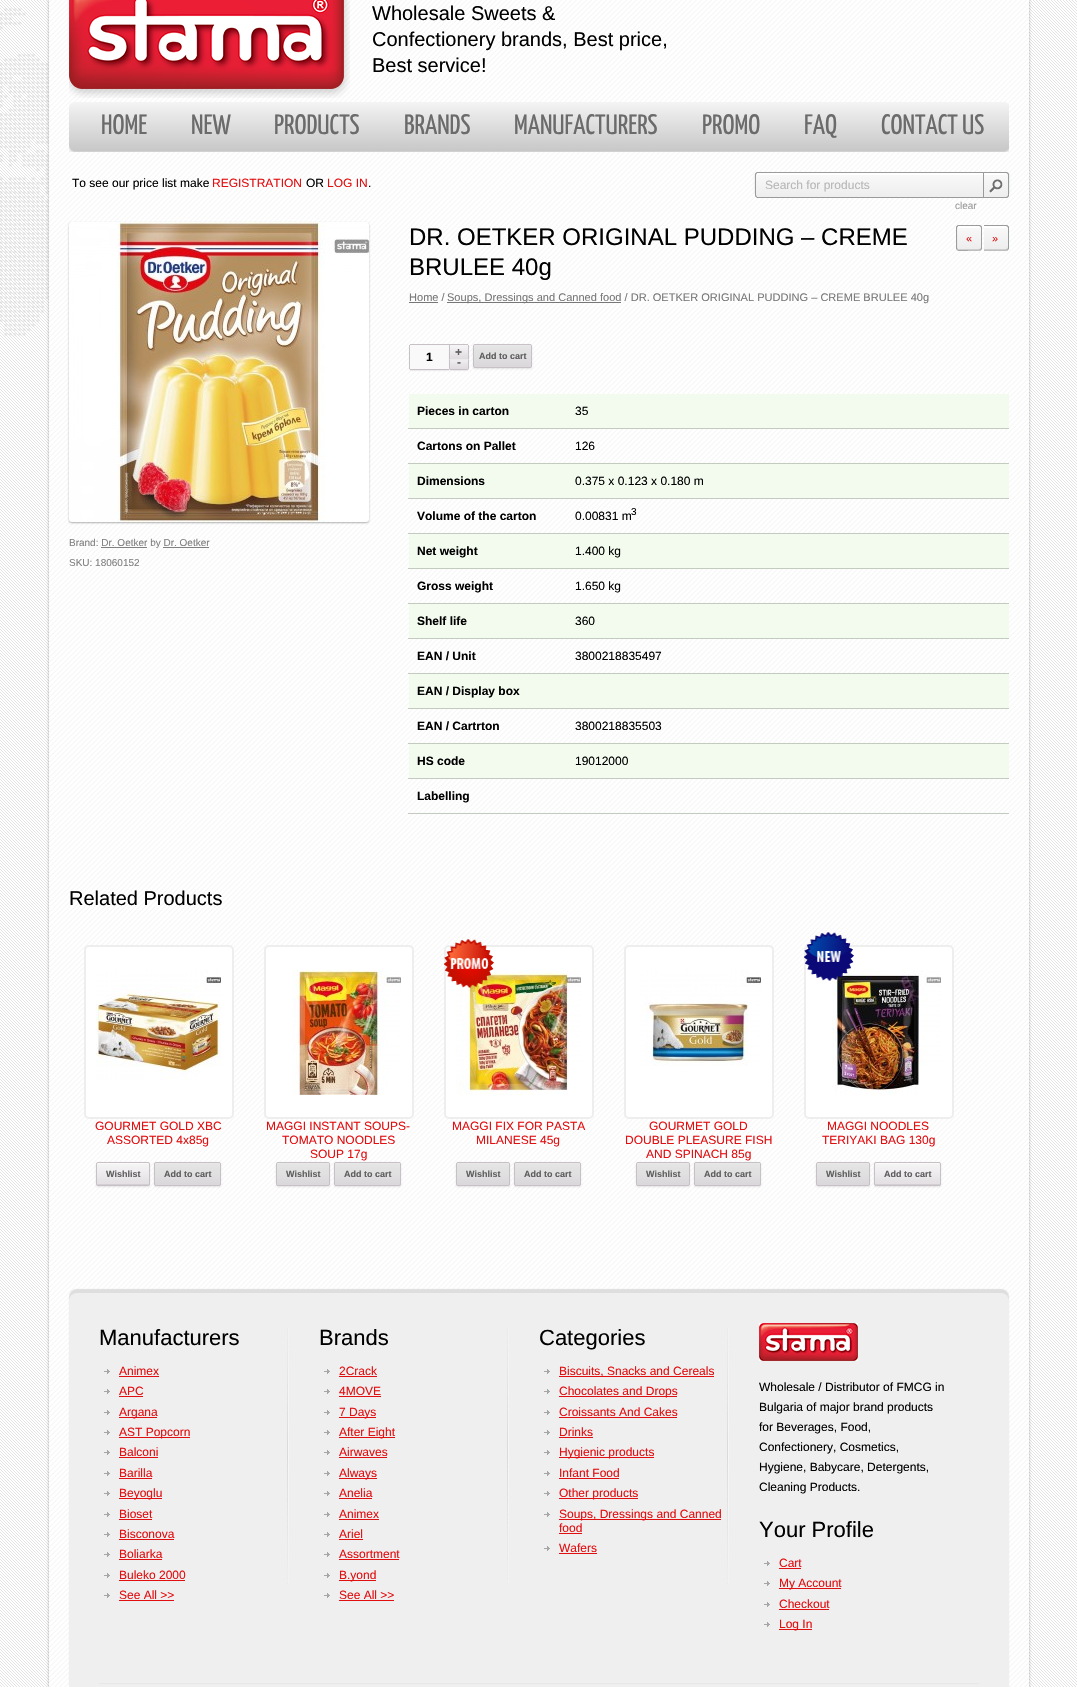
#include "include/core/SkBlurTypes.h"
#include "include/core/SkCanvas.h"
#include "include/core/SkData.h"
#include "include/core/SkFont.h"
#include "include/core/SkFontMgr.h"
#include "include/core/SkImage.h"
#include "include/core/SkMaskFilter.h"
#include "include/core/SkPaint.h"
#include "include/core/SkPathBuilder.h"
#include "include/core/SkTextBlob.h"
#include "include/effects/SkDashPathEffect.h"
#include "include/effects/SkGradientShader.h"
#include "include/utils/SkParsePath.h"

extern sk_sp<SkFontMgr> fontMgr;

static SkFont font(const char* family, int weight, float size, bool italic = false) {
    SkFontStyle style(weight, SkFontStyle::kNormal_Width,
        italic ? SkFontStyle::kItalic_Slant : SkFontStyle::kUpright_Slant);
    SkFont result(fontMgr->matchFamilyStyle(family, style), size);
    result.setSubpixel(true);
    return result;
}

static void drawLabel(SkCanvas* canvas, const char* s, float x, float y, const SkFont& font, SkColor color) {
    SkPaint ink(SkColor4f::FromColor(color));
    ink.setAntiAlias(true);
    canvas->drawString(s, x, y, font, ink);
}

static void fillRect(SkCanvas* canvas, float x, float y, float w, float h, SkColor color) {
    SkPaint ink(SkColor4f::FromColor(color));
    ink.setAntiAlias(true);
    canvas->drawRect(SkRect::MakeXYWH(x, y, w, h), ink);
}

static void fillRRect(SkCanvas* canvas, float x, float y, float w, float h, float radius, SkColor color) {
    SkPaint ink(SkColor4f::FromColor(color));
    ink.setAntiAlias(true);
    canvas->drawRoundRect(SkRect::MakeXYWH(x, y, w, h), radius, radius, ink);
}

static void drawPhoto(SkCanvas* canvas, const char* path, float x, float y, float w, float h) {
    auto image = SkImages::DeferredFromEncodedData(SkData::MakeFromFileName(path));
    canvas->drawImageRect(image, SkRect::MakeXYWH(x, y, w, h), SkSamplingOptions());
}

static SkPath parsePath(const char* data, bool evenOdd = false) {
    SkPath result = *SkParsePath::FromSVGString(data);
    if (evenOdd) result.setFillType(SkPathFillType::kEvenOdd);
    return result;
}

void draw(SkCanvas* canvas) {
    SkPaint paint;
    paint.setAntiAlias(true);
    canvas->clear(0xFFFFFFFF);
    drawPhoto(canvas, "assets/img1.png", 0, 0, 1077, 1687);
    drawPhoto(canvas, "assets/img2.png", 0, 8, 49, 328);
    paint.setColor(0x4D000000);
    paint.setMaskFilter(SkMaskFilter::MakeBlur(kNormal_SkBlurStyle, 1.5f));
    canvas->drawRoundRect(SkRect::MakeXYWH(49, -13, 980, 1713), 8, 8, paint);
    paint.setMaskFilter(nullptr);
    drawPhoto(canvas, "assets/img3.png", 49, 0, 980, 1687);
    drawPhoto(canvas, "assets/img4.png", 69, 0, 281, 98);
    SkFont font1 = font("Liberation Sans", 400, 20);
    drawLabel(canvas, "Wholesale Sweets &", 372, 20, font1, 0xFF000000);
    drawLabel(canvas, "Confectionery brands, Best price,", 372, 46, font1, 0xFF000000);
    drawLabel(canvas, "Best service!", 372, 72, font1, 0xFF000000);
    drawPhoto(canvas, "assets/img5.png", 69, 102, 940, 50);
    SkFont font2 = font("Yanone Kaffeesatz", 400, 28);
    drawLabel(canvas, "HOME", 101, 134, font2, 0xFF6B6B6B);
    drawLabel(canvas, "NEW", 191, 134, font2, 0xFF6B6B6B);
    drawLabel(canvas, "PRODUCTS", 274, 134, font2, 0xFF6B6B6B);
    drawLabel(canvas, "BRANDS", 404, 134, font2, 0xFF6B6B6B);
    drawLabel(canvas, "MANUFACTURERS", 514, 134, font2, 0xFF6B6B6B);
    drawLabel(canvas, "PROMO", 702, 134, font2, 0xFF6B6B6B);
    drawLabel(canvas, "FAQ", 804, 134, font2, 0xFF6B6B6B);
    drawLabel(canvas, "CONTACT US", 881, 134, font2, 0xFF6B6B6B);
    SkFont font3 = font("Liberation Sans", 400, 12);
    drawLabel(canvas, "To see our price list make", 72, 187, font3, 0xFF000000);
    drawLabel(canvas, "REGISTRATION", 212, 187, font3, 0xFFE20F11);
    drawLabel(canvas, "OR", 306, 187, font3, 0xFF000000);
    drawLabel(canvas, "LOG IN", 327, 187, font3, 0xFFE20F11);
    drawLabel(canvas, ".", 368, 187, font3, 0xFF000000);
    paint.setColor(0xFFDDDDDD);
    paint.setMaskFilter(SkMaskFilter::MakeBlur(kNormal_SkBlurStyle, 1));
    canvas->drawRect(SkRect::MakeXYWH(755, 174, 254, 20), paint);
    paint.setMaskFilter(nullptr);
    drawPhoto(canvas, "assets/img6.png", 755, 172, 2, 26);
    drawPhoto(canvas, "assets/img7.png", 757, 172, 252, 26);
    drawLabel(canvas, "Search for products", 765, 189, font3, 0xFFB7B7B7);
    SkFont font4 = font("Liberation Sans", 400, 10);
    drawLabel(canvas, "clear", 955, 209, font4, 0xFF999A9B);
    paint.setColor(0x4D000000);
    paint.setMaskFilter(SkMaskFilter::MakeBlur(kNormal_SkBlurStyle, 1));
    canvas->drawRoundRect(SkRect::MakeXYWH(69, 223, 300, 300), 3, 3, paint);
    paint.setMaskFilter(nullptr);
    drawPhoto(canvas, "assets/img8.png", 69, 222, 300, 300);
    drawLabel(canvas, "Brand: Dr. Oetker by Dr. Oetker", 69, 546, font4, 0xFF808080);
    fillRect(canvas, 101, 547, 46, 1, 0xFF808080);
    fillRect(canvas, 163, 547, 46, 1, 0xFF808080);
    SkFont font5 = font("Liberation Sans", 400, 24);
    drawLabel(canvas, "DR. OETKER ORIGINAL PUDDING – CREME", 409, 245, font5, 0xFF000000);
    drawLabel(canvas, "BRULEE 40g", 409, 275, font5, 0xFF000000);
    drawPhoto(canvas, "assets/img9.png", 956, 225, 13, 26);
    drawPhoto(canvas, "assets/img10.png", 958, 225, 24, 26);
    SkFont font6 = font("Liberation Sans", 400, 11);
    drawLabel(canvas, "«", 966, 242, font6, 0xFFE20F11);
    drawPhoto(canvas, "assets/img11.png", 984, 225, 25, 26);
    drawLabel(canvas, "»", 992, 242, font6, 0xFFE20F11);
    SkFont font7 = font("Liberation Sans", 400, 11.05f);
    drawLabel(canvas, "Home /", 409, 301, font7, 0xFF777777);
    fillRect(canvas, 409, 302, 29, 1, 0xFF777777);
    fillRect(canvas, 447, 302, 174, 1, 0xFF777777);
    drawLabel(canvas, "Soups, Dressings and Canned food / DR. OETKER ORIGINAL PUDDING – CREME BRULEE 40g", 447, 301, font7, 0xFF777777);
    paint.setColor(0xFFEAEAEA);
    paint.setMaskFilter(SkMaskFilter::MakeBlur(kNormal_SkBlurStyle, 0.5f));
    canvas->drawRoundRect(SkRect::MakeXYWH(409, 345, 41, 26), 2, 2, paint);
    paint.setMaskFilter(nullptr);
    paint.setColor(0xFFF9F9F9);
    canvas->drawPath(parsePath("M411 344H450V370H411C410 370 409 369 409 368V346C409 345 410 344 411 344Z"), paint);
    fillRect(canvas, 410, 344, 40, 1, 0xFFC7C0C7);
    fillRect(canvas, 410, 369, 40, 1, 0xFFC7C0C7);
    fillRect(canvas, 409, 345, 1, 24, 0xFFC7C0C7);
    SkFont font8 = font("Liberation Sans", 700, 12);
    drawLabel(canvas, "1", 426, 361, font8, 0xFF000000);
    paint.setColor(0xFFEAEAEA);
    paint.setMaskFilter(SkMaskFilter::MakeBlur(kNormal_SkBlurStyle, 0.5f));
    canvas->drawRoundRect(SkRect::MakeXYWH(449, 356, 20, 15), 2, 2, paint);
    paint.setMaskFilter(nullptr);
    {
        const SkColor colors[] = {0xFFF7F6F7, 0xFFDFDBDF};
        const float stops[] = {0, 1};
        const SkPoint ends[] = {{459, 356}, {459, 369}};
        paint.setShader(SkGradientShader::MakeLinear(ends, colors, stops, 2, SkTileMode::kClamp));
        paint.setAlpha(255);
    }
    canvas->drawRect(SkRect::MakeXYWH(449, 359, 20, 10), paint);
    paint.setStroke(true);
    paint.setStrokeWidth(1);
    paint.setShader(nullptr);
    paint.setColor(0xFFC7C0C7);
    canvas->drawPath(parsePath("M449.5 355.5H468.5V368C468.5 369 468 369.5 467 369.5H451C450 369.5 449.5 369 449.5 368Z"), paint);
    paint.setStroke(false);
    paint.setColor(0xFFEAEAEA);
    paint.setMaskFilter(SkMaskFilter::MakeBlur(kNormal_SkBlurStyle, 0.5f));
    canvas->drawRoundRect(SkRect::MakeXYWH(449, 345, 20, 15), 2, 2, paint);
    paint.setMaskFilter(nullptr);
    {
        const SkColor colors[] = {0xFFF7F6F7, 0xFFDFDBDF};
        const float stops[] = {0, 1};
        const SkPoint ends[] = {{459, 345}, {459, 359}};
        paint.setShader(SkGradientShader::MakeLinear(ends, colors, stops, 2, SkTileMode::kClamp));
        paint.setAlpha(255);
    }
    canvas->drawRect(SkRect::MakeXYWH(450, 345, 18, 14), paint);
    fillRect(canvas, 450, 344, 18, 1, 0xFFC7C0C7);
    fillRect(canvas, 468, 345, 1, 14, 0xFFC7C0C7);
    fillRect(canvas, 449, 345, 1, 14, 0xFFC7C0C7);
    drawLabel(canvas, "+", 455, 356, font8, 0xFF5E5E5E);
    drawLabel(canvas, "-", 457, 366, font8, 0xFF5E5E5E);
    paint.setShader(nullptr);
    paint.setColor(0x1A000000);
    paint.setMaskFilter(SkMaskFilter::MakeBlur(kNormal_SkBlurStyle, 1));
    canvas->drawRoundRect(SkRect::MakeXYWH(473, 345, 59, 24), 2, 2, paint);
    paint.setMaskFilter(nullptr);
    drawPhoto(canvas, "assets/img12.png", 474, 345, 58, 23);
    paint.setColor(0x4DFFFFFF);
    canvas->drawPath(parsePath("M475 345C473 345 474 360 474 363C474 370 475 367 484 367H530C532 367 531 358 531 356C531 354 532 345 530 345Z"), paint);
    paint.setColor(0x12000000);
    canvas->drawPath(parsePath("M475 345C473 345 474 360 474 363C474 370 475 367 484 367H530C532 367 531 358 531 356C531 354 532 345 530 345Z"), paint);
    paint.setStroke(true);
    paint.setColor(0xFFC7C0C7);
    canvas->drawRoundRect(SkRect::MakeXYWH(473.5f, 344.5f, 58, 23), 1.5f, 1.5f, paint);
    SkFont font9 = font("Liberation Sans", 700, 9);
    drawLabel(canvas, "Add to cart", 479, 359, font9, 0xFF5E5E5E);
    fillRect(canvas, 409, 394, 600, 34, 0xFFF3FBEF);
    drawLabel(canvas, "Pieces in carton", 417, 415, font8, 0xFF000000);
    fillRect(canvas, 408, 428, 601, 1, 0xFFC3CAC0);
    drawLabel(canvas, "35", 575, 415, font3, 0xFF000000);
    drawLabel(canvas, "Cartons on Pallet", 417, 450, font8, 0xFF000000);
    fillRect(canvas, 408, 463, 601, 1, 0xFFC3CAC0);
    drawLabel(canvas, "126", 575, 450, font3, 0xFF000000);
    fillRect(canvas, 409, 464, 600, 34, 0xFFF3FBEF);
    drawLabel(canvas, "Dimensions", 417, 485, font8, 0xFF000000);
    fillRect(canvas, 408, 498, 601, 1, 0xFFC3CAC0);
    drawLabel(canvas, "0.375 x 0.123 x 0.180 m", 575, 485, font3, 0xFF000000);
    drawLabel(canvas, "Volume of the carton", 417, 520, font8, 0xFF000000);
    fillRect(canvas, 408, 533, 601, 1, 0xFFC3CAC0);
    drawLabel(canvas, "0.00831 m", 575, 520, font3, 0xFF000000);
    drawLabel(canvas, "3", 631, 515, font4, 0xFF000000);
    fillRect(canvas, 409, 534, 600, 34, 0xFFF3FBEF);
    drawLabel(canvas, "Net weight", 417, 555, font8, 0xFF000000);
    fillRect(canvas, 408, 568, 601, 1, 0xFFC3CAC0);
    drawLabel(canvas, "1.400 kg", 575, 555, font3, 0xFF000000);
    drawLabel(canvas, "Gross weight", 417, 590, font8, 0xFF000000);
    fillRect(canvas, 408, 603, 601, 1, 0xFFC3CAC0);
    drawLabel(canvas, "1.650 kg", 575, 590, font3, 0xFF000000);
    fillRect(canvas, 409, 604, 600, 34, 0xFFF3FBEF);
    drawLabel(canvas, "Shelf life", 417, 625, font8, 0xFF000000);
    fillRect(canvas, 408, 638, 601, 1, 0xFFC3CAC0);
    drawLabel(canvas, "360", 575, 625, font3, 0xFF000000);
    drawLabel(canvas, "EAN / Unit", 417, 660, font8, 0xFF000000);
    fillRect(canvas, 408, 673, 601, 1, 0xFFC3CAC0);
    drawLabel(canvas, "3800218835497", 575, 660, font3, 0xFF000000);
    fillRect(canvas, 409, 674, 600, 34, 0xFFF3FBEF);
    drawLabel(canvas, "EAN / Display box", 417, 695, font8, 0xFF000000);
    fillRect(canvas, 408, 708, 601, 1, 0xFFC3CAC0);
    drawLabel(canvas, "EAN / Cartrton", 417, 730, font8, 0xFF000000);
    fillRect(canvas, 408, 743, 601, 1, 0xFFC3CAC0);
    drawLabel(canvas, "3800218835503", 575, 730, font3, 0xFF000000);
    fillRect(canvas, 409, 744, 600, 34, 0xFFF3FBEF);
    drawLabel(canvas, "HS code", 417, 765, font8, 0xFF000000);
    fillRect(canvas, 408, 778, 601, 1, 0xFFC3CAC0);
    drawLabel(canvas, "19012000", 575, 765, font3, 0xFF000000);
    drawLabel(canvas, "Labelling", 417, 800, font8, 0xFF000000);
    fillRect(canvas, 408, 813, 601, 1, 0xFFC3CAC0);
    drawLabel(canvas, "SKU: 18060152", 69, 566, font4, 0xFF808080);
    drawLabel(canvas, "Related Products", 69, 905, font1, 0xFF000000);
    paint.setStroke(false);
    paint.setColor(0xFFFFFFFF);
    canvas->drawRoundRect(SkRect::MakeXYWH(85, 946, 148, 172), 4, 4, paint);
    paint.setStroke(true);
    paint.setStrokeWidth(2);
    paint.setColor(0xFFEEEEEE);
    canvas->drawRoundRect(SkRect::MakeXYWH(85, 946, 148, 172), 4, 4, paint);
    drawPhoto(canvas, "assets/img13.png", 96, 970, 125, 110);
    drawLabel(canvas, "GOURMET GOLD XBC", 95, 1130, font3, 0xFFE20F11);
    drawLabel(canvas, "ASSORTED 4x85g", 107, 1144, font3, 0xFFE20F11);
    paint.setStroke(false);
    paint.setColor(0x1A000000);
    paint.setMaskFilter(SkMaskFilter::MakeBlur(kNormal_SkBlurStyle, 1));
    canvas->drawRoundRect(SkRect::MakeXYWH(96, 1163, 54, 24), 2, 2, paint);
    paint.setMaskFilter(nullptr);
    drawPhoto(canvas, "assets/img14.png", 97, 1163, 53, 23);
    paint.setMaskFilter(SkMaskFilter::MakeBlur(kNormal_SkBlurStyle, 1));
    canvas->drawRoundRect(SkRect::MakeXYWH(154, 1163, 67, 24), 2, 2, paint);
    paint.setMaskFilter(nullptr);
    drawPhoto(canvas, "assets/img15.png", 155, 1163, 66, 23);
    paint.setColor(0xFFFBFAFB);
    canvas->drawPath(parsePath("M98 1164H148C149 1164 149 1164 149 1165C149 1161 144 1163 140 1163H106C102 1163 97 1161 97 1165C97 1164 97 1164 98 1164Z"), paint);
    paint.setColor(0xFFD2CED2);
    canvas->drawPath(parsePath("M97 1183C97 1187 102 1185 106 1185H140C144 1185 149 1187 149 1183C149 1184 149 1184 148 1184H98C97 1184 97 1184 97 1183Z"), paint);
    paint.setStroke(true);
    paint.setStrokeWidth(1);
    paint.setColor(0xFFC7C0C7);
    canvas->drawRoundRect(SkRect::MakeXYWH(96.5f, 1162.5f, 53, 23), 1.5f, 1.5f, paint);
    drawLabel(canvas, "Wishlist", 106, 1177, font9, 0xFF5E5E5E);
    paint.setStroke(false);
    paint.setColor(0x4DFFFFFF);
    canvas->drawPath(parsePath("M156 1163C154 1163 155 1172 155 1174C155 1176 154 1185 156 1185H208C219 1185 220 1188 220 1181C220 1178 221 1163 219 1163Z"), paint);
    paint.setColor(0x12000000);
    canvas->drawPath(parsePath("M156 1163C154 1163 155 1172 155 1174C155 1176 154 1185 156 1185H208C219 1185 220 1188 220 1181C220 1178 221 1163 219 1163Z"), paint);
    paint.setStroke(true);
    paint.setColor(0xFFC7C0C7);
    canvas->drawRoundRect(SkRect::MakeXYWH(154.5f, 1162.5f, 66, 23), 1.5f, 1.5f, paint);
    drawLabel(canvas, "Add to cart", 164, 1177, font9, 0xFF5E5E5E);
    paint.setStroke(false);
    paint.setColor(0xFFFFFFFF);
    canvas->drawRoundRect(SkRect::MakeXYWH(265, 946, 148, 172), 4, 4, paint);
    paint.setStroke(true);
    paint.setStrokeWidth(2);
    paint.setColor(0xFFEEEEEE);
    canvas->drawRoundRect(SkRect::MakeXYWH(265, 946, 148, 172), 4, 4, paint);
    drawPhoto(canvas, "assets/img16.png", 292, 970, 109, 125);
    drawLabel(canvas, "MAGGI INSTANT SOUPS-", 266, 1130, font3, 0xFFE20F11);
    drawLabel(canvas, "TOMATO NOODLES", 282, 1144, font3, 0xFFE20F11);
    drawLabel(canvas, "SOUP 17g", 310, 1158, font3, 0xFFE20F11);
    paint.setStroke(false);
    paint.setColor(0x1A000000);
    paint.setMaskFilter(SkMaskFilter::MakeBlur(kNormal_SkBlurStyle, 1));
    canvas->drawRoundRect(SkRect::MakeXYWH(276, 1163, 54, 24), 2, 2, paint);
    paint.setMaskFilter(nullptr);
    drawPhoto(canvas, "assets/img14.png", 277, 1163, 53, 23);
    paint.setMaskFilter(SkMaskFilter::MakeBlur(kNormal_SkBlurStyle, 1));
    canvas->drawRoundRect(SkRect::MakeXYWH(334, 1163, 67, 24), 2, 2, paint);
    paint.setMaskFilter(nullptr);
    drawPhoto(canvas, "assets/img15.png", 335, 1163, 66, 23);
    paint.setColor(0x4DFFFFFF);
    canvas->drawPath(parsePath("M278 1163C276 1163 277 1172 277 1174C277 1176 276 1185 278 1185H320C329 1185 329 1187 329 1181C329 1178 330 1163 328 1163Z"), paint);
    paint.setColor(0x12000000);
    canvas->drawPath(parsePath("M278 1163C276 1163 277 1172 277 1174C277 1176 276 1185 278 1185H320C329 1185 329 1187 329 1181C329 1178 330 1163 328 1163Z"), paint);
    paint.setStroke(true);
    paint.setStrokeWidth(1);
    paint.setColor(0xFFC7C0C7);
    canvas->drawRoundRect(SkRect::MakeXYWH(276.5f, 1162.5f, 53, 23), 1.5f, 1.5f, paint);
    drawLabel(canvas, "Wishlist", 286, 1177, font9, 0xFF5E5E5E);
    paint.setStroke(false);
    paint.setColor(0x4DFFFFFF);
    canvas->drawPath(parsePath("M336 1163C334 1163 335 1172 335 1174C335 1176 334 1185 336 1185H388C399 1185 400 1188 400 1181C400 1178 401 1163 399 1163Z"), paint);
    paint.setColor(0x12000000);
    canvas->drawPath(parsePath("M336 1163C334 1163 335 1172 335 1174C335 1176 334 1185 336 1185H388C399 1185 400 1188 400 1181C400 1178 401 1163 399 1163Z"), paint);
    paint.setStroke(true);
    paint.setColor(0xFFC7C0C7);
    canvas->drawRoundRect(SkRect::MakeXYWH(334.5f, 1162.5f, 66, 23), 1.5f, 1.5f, paint);
    drawLabel(canvas, "Add to cart", 344, 1177, font9, 0xFF5E5E5E);
    paint.setStroke(false);
    paint.setColor(0xFFFFFFFF);
    canvas->drawRoundRect(SkRect::MakeXYWH(445, 946, 148, 172), 4, 4, paint);
    paint.setStroke(true);
    paint.setStrokeWidth(2);
    paint.setColor(0xFFEEEEEE);
    canvas->drawRoundRect(SkRect::MakeXYWH(445, 946, 148, 172), 4, 4, paint);
    drawPhoto(canvas, "assets/img18.png", 456, 970, 125, 125);
    drawPhoto(canvas, "assets/img17.png", 444, 939, 50, 49);
    drawLabel(canvas, "MAGGI FIX FOR PASTA", 452, 1130, font3, 0xFFE20F11);
    drawLabel(canvas, "MILANESE 45g", 476, 1144, font3, 0xFFE20F11);
    paint.setStroke(false);
    paint.setColor(0x1A000000);
    paint.setMaskFilter(SkMaskFilter::MakeBlur(kNormal_SkBlurStyle, 1));
    canvas->drawRoundRect(SkRect::MakeXYWH(456, 1163, 54, 24), 2, 2, paint);
    paint.setMaskFilter(nullptr);
    drawPhoto(canvas, "assets/img14.png", 457, 1163, 53, 23);
    paint.setMaskFilter(SkMaskFilter::MakeBlur(kNormal_SkBlurStyle, 1));
    canvas->drawRoundRect(SkRect::MakeXYWH(514, 1163, 67, 24), 2, 2, paint);
    paint.setMaskFilter(nullptr);
    drawPhoto(canvas, "assets/img15.png", 515, 1163, 66, 23);
    paint.setColor(0x4DFFFFFF);
    canvas->drawPath(parsePath("M458 1163C456 1163 457 1172 457 1174C457 1176 456 1185 458 1185H500C509 1185 509 1187 509 1181C509 1178 510 1163 508 1163Z"), paint);
    paint.setColor(0x12000000);
    canvas->drawPath(parsePath("M458 1163C456 1163 457 1172 457 1174C457 1176 456 1185 458 1185H500C509 1185 509 1187 509 1181C509 1178 510 1163 508 1163Z"), paint);
    paint.setStroke(true);
    paint.setStrokeWidth(1);
    paint.setColor(0xFFC7C0C7);
    canvas->drawRoundRect(SkRect::MakeXYWH(456.5f, 1162.5f, 53, 23), 1.5f, 1.5f, paint);
    drawLabel(canvas, "Wishlist", 466, 1177, font9, 0xFF5E5E5E);
    paint.setStroke(false);
    paint.setColor(0x4DFFFFFF);
    canvas->drawPath(parsePath("M516 1163C514 1163 515 1172 515 1174C515 1176 514 1185 516 1185H568C579 1185 580 1188 580 1181C580 1178 581 1163 579 1163Z"), paint);
    paint.setColor(0x12000000);
    canvas->drawPath(parsePath("M516 1163C514 1163 515 1172 515 1174C515 1176 514 1185 516 1185H568C579 1185 580 1188 580 1181C580 1178 581 1163 579 1163Z"), paint);
    paint.setStroke(true);
    paint.setColor(0xFFC7C0C7);
    canvas->drawRoundRect(SkRect::MakeXYWH(514.5f, 1162.5f, 66, 23), 1.5f, 1.5f, paint);
    drawLabel(canvas, "Add to cart", 524, 1177, font9, 0xFF5E5E5E);
    paint.setStroke(false);
    paint.setColor(0xFFFFFFFF);
    canvas->drawRoundRect(SkRect::MakeXYWH(625, 946, 148, 172), 4, 4, paint);
    paint.setStroke(true);
    paint.setStrokeWidth(2);
    paint.setColor(0xFFEEEEEE);
    canvas->drawRoundRect(SkRect::MakeXYWH(625, 946, 148, 172), 4, 4, paint);
    drawPhoto(canvas, "assets/img19.png", 640, 970, 121, 96);
    drawLabel(canvas, "GOURMET GOLD", 649, 1130, font3, 0xFFE20F11);
    drawLabel(canvas, "DOUBLE PLEASURE FISH", 625, 1144, font3, 0xFFE20F11);
    drawLabel(canvas, "AND SPINACH 85g", 646, 1158, font3, 0xFFE20F11);
    paint.setStroke(false);
    paint.setColor(0x1A000000);
    paint.setMaskFilter(SkMaskFilter::MakeBlur(kNormal_SkBlurStyle, 1));
    canvas->drawRoundRect(SkRect::MakeXYWH(636, 1163, 54, 24), 2, 2, paint);
    paint.setMaskFilter(nullptr);
    drawPhoto(canvas, "assets/img14.png", 637, 1163, 53, 23);
    paint.setMaskFilter(SkMaskFilter::MakeBlur(kNormal_SkBlurStyle, 1));
    canvas->drawRoundRect(SkRect::MakeXYWH(694, 1163, 67, 24), 2, 2, paint);
    paint.setMaskFilter(nullptr);
    drawPhoto(canvas, "assets/img15.png", 695, 1163, 66, 23);
    paint.setColor(0x4DFFFFFF);
    canvas->drawPath(parsePath("M638 1163C636 1163 637 1178 637 1181C637 1187 637 1185 646 1185H688C690 1185 689 1176 689 1174C689 1172 690 1163 688 1163Z"), paint);
    paint.setColor(0x12000000);
    canvas->drawPath(parsePath("M638 1163C636 1163 637 1178 637 1181C637 1187 637 1185 646 1185H688C690 1185 689 1176 689 1174C689 1172 690 1163 688 1163Z"), paint);
    paint.setStroke(true);
    paint.setStrokeWidth(1);
    paint.setColor(0xFFC7C0C7);
    canvas->drawRoundRect(SkRect::MakeXYWH(636.5f, 1162.5f, 53, 23), 1.5f, 1.5f, paint);
    drawLabel(canvas, "Wishlist", 646, 1177, font9, 0xFF5E5E5E);
    paint.setStroke(false);
    paint.setColor(0x4DFFFFFF);
    canvas->drawPath(parsePath("M696 1163C694 1163 695 1172 695 1174C695 1176 694 1185 696 1185H748C759 1185 760 1188 760 1181C760 1178 761 1163 759 1163Z"), paint);
    paint.setColor(0x12000000);
    canvas->drawPath(parsePath("M696 1163C694 1163 695 1172 695 1174C695 1176 694 1185 696 1185H748C759 1185 760 1188 760 1181C760 1178 761 1163 759 1163Z"), paint);
    paint.setStroke(true);
    paint.setColor(0xFFC7C0C7);
    canvas->drawRoundRect(SkRect::MakeXYWH(694.5f, 1162.5f, 66, 23), 1.5f, 1.5f, paint);
    drawLabel(canvas, "Add to cart", 704, 1177, font9, 0xFF5E5E5E);
    paint.setStroke(false);
    paint.setColor(0xFFFFFFFF);
    canvas->drawRoundRect(SkRect::MakeXYWH(805, 946, 148, 172), 4, 4, paint);
    paint.setStroke(true);
    paint.setStrokeWidth(2);
    paint.setColor(0xFFEEEEEE);
    canvas->drawRoundRect(SkRect::MakeXYWH(805, 946, 148, 172), 4, 4, paint);
    drawPhoto(canvas, "assets/img21.png", 832, 970, 109, 125);
    drawPhoto(canvas, "assets/img20.png", 804, 932, 50, 49);
    drawLabel(canvas, "MAGGI NOODLES", 827, 1130, font3, 0xFFE20F11);
    drawLabel(canvas, "TERIYAKI BAG 130g", 822, 1144, font3, 0xFFE20F11);
    paint.setStroke(false);
    paint.setColor(0x1A000000);
    paint.setMaskFilter(SkMaskFilter::MakeBlur(kNormal_SkBlurStyle, 1));
    canvas->drawRoundRect(SkRect::MakeXYWH(816, 1163, 54, 24), 2, 2, paint);
    paint.setMaskFilter(nullptr);
    drawPhoto(canvas, "assets/img14.png", 817, 1163, 53, 23);
    paint.setMaskFilter(SkMaskFilter::MakeBlur(kNormal_SkBlurStyle, 1));
    canvas->drawRoundRect(SkRect::MakeXYWH(874, 1163, 67, 24), 2, 2, paint);
    paint.setMaskFilter(nullptr);
    drawPhoto(canvas, "assets/img15.png", 875, 1163, 66, 23);
    paint.setColor(0x4DFFFFFF);
    canvas->drawPath(parsePath("M818 1163C816 1163 817 1178 817 1181C817 1187 817 1185 826 1185H868C870 1185 869 1176 869 1174C869 1172 870 1163 868 1163Z"), paint);
    paint.setColor(0x12000000);
    canvas->drawPath(parsePath("M818 1163C816 1163 817 1178 817 1181C817 1187 817 1185 826 1185H868C870 1185 869 1176 869 1174C869 1172 870 1163 868 1163Z"), paint);
    paint.setStroke(true);
    paint.setStrokeWidth(1);
    paint.setColor(0xFFC7C0C7);
    canvas->drawRoundRect(SkRect::MakeXYWH(816.5f, 1162.5f, 53, 23), 1.5f, 1.5f, paint);
    drawLabel(canvas, "Wishlist", 826, 1177, font9, 0xFF5E5E5E);
    paint.setStroke(false);
    paint.setColor(0x4DFFFFFF);
    canvas->drawPath(parsePath("M876 1164H939C940 1164 940 1164 940 1165C940 1160 932 1163 928 1163H886C883 1163 875 1160 875 1165C875 1164 875 1164 876 1164Z"), paint);
    paint.setColor(0xFFD2CED2);
    canvas->drawPath(parsePath("M875 1183C875 1188 883 1185 886 1185H928C932 1185 940 1188 940 1183C940 1184 940 1184 939 1184H876C875 1184 875 1184 875 1183Z"), paint);
    paint.setStroke(true);
    paint.setColor(0xFFC7C0C7);
    canvas->drawRoundRect(SkRect::MakeXYWH(874.5f, 1162.5f, 66, 23), 1.5f, 1.5f, paint);
    drawLabel(canvas, "Add to cart", 884, 1177, font9, 0xFF5E5E5E);
    paint.setStroke(false);
    paint.setColor(0xFFDEDEDE);
    paint.setMaskFilter(SkMaskFilter::MakeBlur(kNormal_SkBlurStyle, 0.5f));
    canvas->drawRoundRect(SkRect::MakeXYWH(69, 1289, 940, 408), 8, 8, paint);
    paint.setMaskFilter(nullptr);
    fillRRect(canvas, 69, 1293, 940, 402, 8, 0xFFEFEFEF);
    drawPhoto(canvas, "assets/img22.png", 287, 1328, 2, 256);
    SkFont font10 = font("Liberation Sans", 400, 22);
    drawLabel(canvas, "Manufacturers", 99, 1345, font10, 0xFF000000);
    drawPhoto(canvas, "assets/img23.png", 104, 1369, 6, 5);
    drawLabel(canvas, "Animex", 119, 1375, font3, 0xFFE20F11);
    fillRect(canvas, 119, 1376, 40, 1, 0xFFE20F11);
    drawPhoto(canvas, "assets/img23.png", 104, 1389, 6, 5);
    drawLabel(canvas, "APC", 119, 1395, font3, 0xFFE20F11);
    fillRect(canvas, 119, 1396, 24, 1, 0xFFE20F11);
    drawPhoto(canvas, "assets/img23.png", 104, 1410, 6, 5);
    fillRect(canvas, 119, 1417, 38, 1, 0xFFE20F11);
    drawLabel(canvas, "Argana", 119, 1416, font3, 0xFFE20F11);
    drawPhoto(canvas, "assets/img23.png", 104, 1430, 6, 5);
    fillRect(canvas, 119, 1437, 71, 1, 0xFFE20F11);
    drawLabel(canvas, "AST Popcorn", 119, 1436, font3, 0xFFE20F11);
    drawPhoto(canvas, "assets/img23.png", 104, 1450, 6, 5);
    drawLabel(canvas, "Balconi", 119, 1456, font3, 0xFFE20F11);
    fillRect(canvas, 119, 1457, 39, 1, 0xFFE20F11);
    drawPhoto(canvas, "assets/img23.png", 104, 1471, 6, 5);
    drawLabel(canvas, "Barilla", 119, 1477, font3, 0xFFE20F11);
    fillRect(canvas, 119, 1478, 33, 1, 0xFFE20F11);
    drawPhoto(canvas, "assets/img23.png", 104, 1491, 6, 5);
    fillRect(canvas, 119, 1498, 43, 1, 0xFFE20F11);
    drawLabel(canvas, "Beyoglu", 119, 1497, font3, 0xFFE20F11);
    drawPhoto(canvas, "assets/img23.png", 104, 1512, 6, 5);
    drawLabel(canvas, "Bioset", 119, 1518, font3, 0xFFE20F11);
    fillRect(canvas, 119, 1519, 33, 1, 0xFFE20F11);
    drawPhoto(canvas, "assets/img23.png", 104, 1532, 6, 5);
    drawLabel(canvas, "Bisconova", 119, 1538, font3, 0xFFE20F11);
    fillRect(canvas, 119, 1539, 55, 1, 0xFFE20F11);
    drawPhoto(canvas, "assets/img23.png", 104, 1552, 6, 5);
    drawLabel(canvas, "Boliarka", 119, 1558, font3, 0xFFE20F11);
    fillRect(canvas, 119, 1559, 43, 1, 0xFFE20F11);
    drawPhoto(canvas, "assets/img23.png", 104, 1573, 6, 5);
    drawLabel(canvas, "Buleko 2000", 119, 1579, font3, 0xFFE20F11);
    fillRect(canvas, 119, 1580, 66, 1, 0xFFE20F11);
    drawPhoto(canvas, "assets/img23.png", 104, 1593, 6, 5);
    drawLabel(canvas, "See All >>", 119, 1599, font3, 0xFFE20F11);
    fillRect(canvas, 119, 1600, 55, 1, 0xFFE20F11);
    drawPhoto(canvas, "assets/img22.png", 507, 1328, 2, 256);
    drawLabel(canvas, "Brands", 319, 1345, font10, 0xFF000000);
    drawPhoto(canvas, "assets/img23.png", 324, 1369, 6, 5);
    drawLabel(canvas, "2Crack", 339, 1375, font3, 0xFFE20F11);
    fillRect(canvas, 339, 1376, 38, 1, 0xFFE20F11);
    drawPhoto(canvas, "assets/img23.png", 324, 1389, 6, 5);
    drawLabel(canvas, "4MOVE", 339, 1395, font3, 0xFFE20F11);
    fillRect(canvas, 339, 1396, 42, 1, 0xFFE20F11);
    drawPhoto(canvas, "assets/img23.png", 324, 1410, 6, 5);
    fillRect(canvas, 339, 1417, 37, 1, 0xFFE20F11);
    drawLabel(canvas, "7 Days", 339, 1416, font3, 0xFFE20F11);
    drawPhoto(canvas, "assets/img23.png", 324, 1430, 6, 5);
    fillRect(canvas, 339, 1437, 56, 1, 0xFFE20F11);
    drawLabel(canvas, "After Eight", 339, 1436, font3, 0xFFE20F11);
    drawPhoto(canvas, "assets/img23.png", 324, 1450, 6, 5);
    drawLabel(canvas, "Airwaves", 339, 1456, font3, 0xFFE20F11);
    fillRect(canvas, 339, 1457, 48, 1, 0xFFE20F11);
    drawPhoto(canvas, "assets/img23.png", 324, 1471, 6, 5);
    fillRect(canvas, 339, 1478, 38, 1, 0xFFE20F11);
    drawLabel(canvas, "Always", 339, 1477, font3, 0xFFE20F11);
    drawPhoto(canvas, "assets/img23.png", 324, 1491, 6, 5);
    drawLabel(canvas, "Anelia", 339, 1497, font3, 0xFFE20F11);
    fillRect(canvas, 339, 1498, 33, 1, 0xFFE20F11);
    drawPhoto(canvas, "assets/img23.png", 324, 1512, 6, 5);
    drawLabel(canvas, "Animex", 339, 1518, font3, 0xFFE20F11);
    fillRect(canvas, 339, 1519, 40, 1, 0xFFE20F11);
    drawPhoto(canvas, "assets/img23.png", 324, 1532, 6, 5);
    drawLabel(canvas, "Ariel", 339, 1538, font3, 0xFFE20F11);
    fillRect(canvas, 339, 1539, 24, 1, 0xFFE20F11);
    drawPhoto(canvas, "assets/img23.png", 324, 1552, 6, 5);
    drawLabel(canvas, "Assortment", 339, 1558, font3, 0xFFE20F11);
    fillRect(canvas, 339, 1559, 60, 1, 0xFFE20F11);
    drawPhoto(canvas, "assets/img23.png", 324, 1573, 6, 5);
    fillRect(canvas, 339, 1580, 37, 1, 0xFFE20F11);
    drawLabel(canvas, "B.yond", 339, 1579, font3, 0xFFE20F11);
    drawPhoto(canvas, "assets/img23.png", 324, 1593, 6, 5);
    drawLabel(canvas, "See All >>", 339, 1599, font3, 0xFFE20F11);
    fillRect(canvas, 339, 1600, 55, 1, 0xFFE20F11);
    drawPhoto(canvas, "assets/img22.png", 727, 1328, 2, 256);
    drawLabel(canvas, "Categories", 539, 1345, font10, 0xFF000000);
    drawPhoto(canvas, "assets/img23.png", 544, 1369, 6, 5);
    fillRect(canvas, 559, 1376, 155, 1, 0xFFE20F11);
    drawLabel(canvas, "Biscuits, Snacks and Cereals", 559, 1375, font3, 0xFFE20F11);
    drawPhoto(canvas, "assets/img23.png", 544, 1389, 6, 5);
    fillRect(canvas, 559, 1396, 118, 1, 0xFFE20F11);
    drawLabel(canvas, "Chocolates and Drops", 559, 1395, font3, 0xFFE20F11);
    drawPhoto(canvas, "assets/img23.png", 544, 1410, 6, 5);
    drawLabel(canvas, "Croissants And Cakes", 559, 1416, font3, 0xFFE20F11);
    fillRect(canvas, 559, 1417, 118, 1, 0xFFE20F11);
    drawPhoto(canvas, "assets/img23.png", 544, 1430, 6, 5);
    drawLabel(canvas, "Drinks", 559, 1436, font3, 0xFFE20F11);
    fillRect(canvas, 559, 1437, 34, 1, 0xFFE20F11);
    drawPhoto(canvas, "assets/img23.png", 544, 1450, 6, 5);
    fillRect(canvas, 559, 1457, 95, 1, 0xFFE20F11);
    drawLabel(canvas, "Hygienic products", 559, 1456, font3, 0xFFE20F11);
    drawPhoto(canvas, "assets/img23.png", 544, 1471, 6, 5);
    drawLabel(canvas, "Infant Food", 559, 1477, font3, 0xFFE20F11);
    fillRect(canvas, 559, 1478, 60, 1, 0xFFE20F11);
    drawPhoto(canvas, "assets/img23.png", 544, 1491, 6, 5);
    fillRect(canvas, 559, 1498, 79, 1, 0xFFE20F11);
    drawLabel(canvas, "Other products", 559, 1497, font3, 0xFFE20F11);
    drawPhoto(canvas, "assets/img23.png", 544, 1512, 6, 5);
    fillRect(canvas, 559, 1519, 162, 1, 0xFFE20F11);
    drawLabel(canvas, "Soups, Dressings and Canned", 559, 1518, font3, 0xFFE20F11);
    drawLabel(canvas, "food", 559, 1532, font3, 0xFFE20F11);
    fillRect(canvas, 559, 1533, 23, 1, 0xFFE20F11);
    drawPhoto(canvas, "assets/img23.png", 544, 1546, 6, 5);
    drawLabel(canvas, "Wafers", 559, 1552, font3, 0xFFE20F11);
    fillRect(canvas, 559, 1553, 38, 1, 0xFFE20F11);
    drawPhoto(canvas, "assets/img24.png", 759, 1323, 99, 38);
    drawLabel(canvas, "Wholesale / Distributor of FMCG in", 759, 1391, font3, 0xFF000000);
    drawLabel(canvas, "Bulgaria of major brand products", 759, 1411, font3, 0xFF000000);
    drawLabel(canvas, "for Beverages, Food,", 759, 1431, font3, 0xFF000000);
    drawLabel(canvas, "Confectionery, Cosmetics,", 759, 1451, font3, 0xFF000000);
    drawLabel(canvas, "Hygiene, Babycare, Detergents,", 759, 1471, font3, 0xFF000000);
    drawLabel(canvas, "Cleaning Products.", 759, 1491, font3, 0xFF000000);
    drawLabel(canvas, "Your Profile", 759, 1537, font10, 0xFF000000);
    drawPhoto(canvas, "assets/img23.png", 764, 1561, 6, 5);
    drawLabel(canvas, "Cart", 779, 1567, font3, 0xFFE20F11);
    fillRect(canvas, 779, 1568, 22, 1, 0xFFE20F11);
    drawPhoto(canvas, "assets/img23.png", 764, 1581, 6, 5);
    fillRect(canvas, 779, 1588, 62, 1, 0xFFE20F11);
    drawLabel(canvas, "My Account", 779, 1587, font3, 0xFFE20F11);
    drawPhoto(canvas, "assets/img23.png", 764, 1602, 6, 5);
    drawLabel(canvas, "Checkout", 779, 1608, font3, 0xFFE20F11);
    fillRect(canvas, 779, 1609, 50, 1, 0xFFE20F11);
    drawPhoto(canvas, "assets/img23.png", 764, 1622, 6, 5);
    fillRect(canvas, 779, 1629, 33, 1, 0xFFE20F11);
    drawLabel(canvas, "Log In", 779, 1628, font3, 0xFFE20F11);
    fillRect(canvas, 99, 1683, 880, 1, 0xFFE7E7E7);
}
